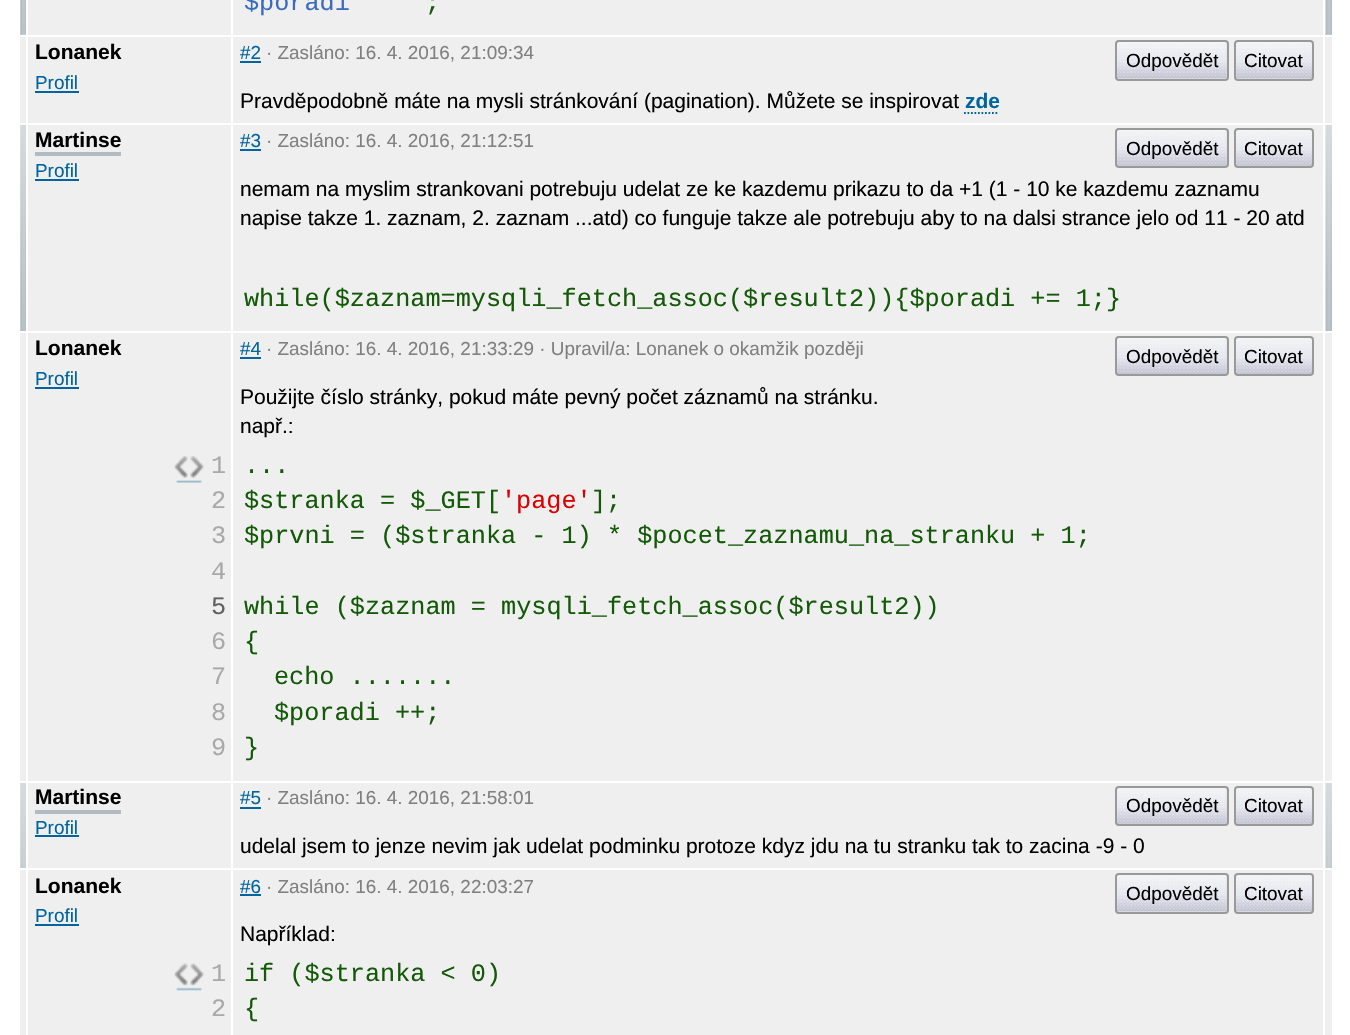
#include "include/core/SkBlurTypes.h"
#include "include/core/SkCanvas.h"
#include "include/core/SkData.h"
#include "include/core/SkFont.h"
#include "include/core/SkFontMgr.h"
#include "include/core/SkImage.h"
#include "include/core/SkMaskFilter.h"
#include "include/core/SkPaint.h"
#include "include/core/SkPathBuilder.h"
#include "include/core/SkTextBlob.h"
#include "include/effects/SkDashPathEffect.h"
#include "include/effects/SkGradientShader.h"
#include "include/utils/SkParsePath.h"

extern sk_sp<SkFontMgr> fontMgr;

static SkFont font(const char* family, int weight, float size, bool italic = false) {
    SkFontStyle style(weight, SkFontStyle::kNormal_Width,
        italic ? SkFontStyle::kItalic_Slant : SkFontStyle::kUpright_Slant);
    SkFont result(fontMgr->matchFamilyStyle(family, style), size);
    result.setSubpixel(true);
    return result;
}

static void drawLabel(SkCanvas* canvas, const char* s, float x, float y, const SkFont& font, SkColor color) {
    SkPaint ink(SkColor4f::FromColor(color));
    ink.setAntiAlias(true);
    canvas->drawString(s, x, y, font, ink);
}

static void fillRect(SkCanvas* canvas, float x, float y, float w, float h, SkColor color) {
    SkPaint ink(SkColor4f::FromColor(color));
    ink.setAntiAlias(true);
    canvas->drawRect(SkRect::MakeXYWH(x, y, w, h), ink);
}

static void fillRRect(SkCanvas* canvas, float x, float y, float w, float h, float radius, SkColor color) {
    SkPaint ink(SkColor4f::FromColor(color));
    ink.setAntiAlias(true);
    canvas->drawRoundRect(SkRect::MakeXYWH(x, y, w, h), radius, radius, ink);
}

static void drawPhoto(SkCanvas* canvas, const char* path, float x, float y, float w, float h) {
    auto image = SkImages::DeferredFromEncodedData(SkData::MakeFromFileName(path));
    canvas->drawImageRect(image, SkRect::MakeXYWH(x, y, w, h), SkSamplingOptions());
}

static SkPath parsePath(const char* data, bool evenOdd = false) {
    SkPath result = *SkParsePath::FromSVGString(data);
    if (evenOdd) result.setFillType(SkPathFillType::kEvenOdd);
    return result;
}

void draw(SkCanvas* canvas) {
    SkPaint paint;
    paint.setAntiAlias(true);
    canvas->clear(0xFFFFFFFF);
    fillRect(canvas, 28, 0, 1295, 35, 0xFFEFEFEF);
    fillRect(canvas, 20, 34, 6, 1, 0xFFB1BBC1);
    drawPhoto(canvas, "assets/img1.png", 20, 0, 6, 35);
    SkFont font1 = font("Liberation Mono", 400, 25.2f);
    drawLabel(canvas, "$poradi", 244, 10, font1, 0xFF3B6BBF);
    drawLabel(canvas, ";", 425, 10, font1, 0xFF135908);
    fillRect(canvas, 1325, 34, 7, 1, 0xFFB1BBC1);
    drawPhoto(canvas, "assets/img2.png", 1325, 0, 7, 35);
    fillRect(canvas, 20, 37, 1312, 86, 0xFFEFEFEF);
    fillRect(canvas, 26, 35, 2, 89, 0xFFFFFFFF);
    SkFont font2 = font("Liberation Sans", 700, 21);
    drawLabel(canvas, "Lonanek", 35, 59, font2, 0xFF000000);
    SkFont font3 = font("Liberation Sans", 400, 18.9f);
    drawLabel(canvas, "Profil", 35, 89, font3, 0xFF00659C);
    fillRect(canvas, 35, 91, 44, 2, 0xFF00659C);
    drawLabel(canvas, "#2", 240, 59, font3, 0xFF00659C);
    fillRect(canvas, 240, 61, 21, 2, 0xFF00659C);
    drawLabel(canvas, "· Zasláno: 16. 4. 2016, 21:09:34", 266, 59, font3, 0xFF808080);
    fillRRect(canvas, 1117, 42, 110, 37, 2, 0xFFD6DBDE);
    drawPhoto(canvas, "assets/img3.png", 1117, 42, 110, 36);
    paint.setStroke(true);
    paint.setStrokeWidth(2);
    paint.setColor(0xFF999999);
    canvas->drawRoundRect(SkRect::MakeXYWH(1116, 41, 112, 39), 3, 3, paint);
    drawLabel(canvas, "Odpovědět", 1126, 67, font3, 0xFF000000);
    fillRRect(canvas, 1236, 42, 77, 37, 2, 0xFFD6DBDE);
    drawPhoto(canvas, "assets/img4.png", 1236, 42, 76, 36);
    canvas->drawRoundRect(SkRect::MakeXYWH(1235, 41, 78, 39), 3, 3, paint);
    drawLabel(canvas, "Citovat", 1244, 67, font3, 0xFF000000);
    SkFont font4 = font("Liberation Sans", 400, 21);
    drawLabel(canvas, "Pravděpodobně máte na mysli stránkování (pagination). Můžete se inspirovat", 240, 108, font4, 0xFF000000);
    drawLabel(canvas, "zde", 965, 108, font2, 0xFF00659C);
    paint.setStrokeWidth(1.8f);
    paint.setColor(0xFF00659C);
    paint.setPathEffect(SkDashPathEffect::Make({{1.75f, 1.75f}}, 0));
    canvas->drawPath(parsePath("M964 113H999"), paint);
    paint.setPathEffect(nullptr);
    fillRect(canvas, 1323, 35, 2, 89, 0xFFFFFFFF);
    fillRect(canvas, 28, 125, 1295, 206, 0xFFEFEFEF);
    drawPhoto(canvas, "assets/img5.png", 20, 125, 6, 206);
    drawLabel(canvas, "Martinse", 35, 147, font2, 0xFF000000);
    fillRect(canvas, 35, 152, 86, 4, 0xFFB1BBC1);
    drawLabel(canvas, "Profil", 35, 177, font3, 0xFF00659C);
    fillRect(canvas, 35, 179, 44, 2, 0xFF00659C);
    drawLabel(canvas, "#3", 240, 147, font3, 0xFF00659C);
    fillRect(canvas, 240, 149, 21, 2, 0xFF00659C);
    drawLabel(canvas, "· Zasláno: 16. 4. 2016, 21:12:51", 266, 147, font3, 0xFF808080);
    fillRRect(canvas, 1117, 130, 110, 36, 2, 0xFFD6DBDE);
    drawPhoto(canvas, "assets/img6.png", 1116, 129, 111, 37);
    paint.setStrokeWidth(2);
    paint.setColor(0xFF999999);
    canvas->drawRoundRect(SkRect::MakeXYWH(1116, 129, 112, 38), 3, 3, paint);
    drawLabel(canvas, "Odpovědět", 1126, 155, font3, 0xFF000000);
    fillRRect(canvas, 1236, 130, 77, 36, 2, 0xFFD6DBDE);
    drawPhoto(canvas, "assets/img7.png", 1235, 129, 78, 37);
    canvas->drawRoundRect(SkRect::MakeXYWH(1235, 129, 78, 38), 3, 3, paint);
    drawLabel(canvas, "Citovat", 1244, 155, font3, 0xFF000000);
    drawLabel(canvas, "nemam na myslim strankovani potrebuju udelat ze ke kazdemu prikazu to da +1 (1 - 10 ke kazdemu zaznamu", 240, 196, font4, 0xFF000000);
    drawLabel(canvas, "napise takze 1. zaznam, 2. zaznam ...atd) co funguje takze ale potrebuju aby to na dalsi strance jelo od 11 - 20 atd", 240, 225, font4, 0xFF000000);
    drawLabel(canvas, "while($zaznam=mysqli_fetch_assoc($result2)){$poradi += 1;}", 244, 306, font1, 0xFF135908);
    drawPhoto(canvas, "assets/img8.png", 1325, 125, 7, 206);
    fillRect(canvas, 20, 333, 1312, 448, 0xFFEFEFEF);
    fillRect(canvas, 26, 331, 2, 451, 0xFFFFFFFF);
    drawLabel(canvas, "Lonanek", 35, 355, font2, 0xFF000000);
    drawLabel(canvas, "Profil", 35, 385, font3, 0xFF00659C);
    fillRect(canvas, 35, 387, 44, 2, 0xFF00659C);
    drawLabel(canvas, "#4", 240, 355, font3, 0xFF00659C);
    fillRect(canvas, 240, 357, 21, 2, 0xFF00659C);
    drawLabel(canvas, "· Zasláno: 16. 4. 2016, 21:33:29 · Upravil/a: Lonanek o okamžik později", 266, 355, font3, 0xFF808080);
    fillRRect(canvas, 1117, 338, 110, 37, 2, 0xFFD6DBDE);
    drawPhoto(canvas, "assets/img9.png", 1117, 338, 110, 36);
    canvas->drawRoundRect(SkRect::MakeXYWH(1116, 337, 112, 38), 3, 3, paint);
    drawLabel(canvas, "Odpovědět", 1126, 363, font3, 0xFF000000);
    fillRRect(canvas, 1236, 338, 77, 37, 2, 0xFFD6DBDE);
    drawPhoto(canvas, "assets/img10.png", 1236, 338, 76, 36);
    canvas->drawRoundRect(SkRect::MakeXYWH(1235, 337, 78, 38), 3, 3, paint);
    drawLabel(canvas, "Citovat", 1244, 363, font3, 0xFF000000);
    drawLabel(canvas, "Použijte číslo stránky, pokud máte pevný počet záznamů na stránku.", 240, 404, font4, 0xFF000000);
    drawLabel(canvas, "např.:", 240, 433, font4, 0xFF000000);
    drawPhoto(canvas, "assets/img11.png", 174, 456, 30, 27);
    drawLabel(canvas, "1", 211, 473, font1, 0xFFA9A9A9);
    drawLabel(canvas, "2", 211, 508, font1, 0xFFA9A9A9);
    drawLabel(canvas, "3", 211, 543, font1, 0xFFA9A9A9);
    drawLabel(canvas, "4", 211, 579, font1, 0xFFA9A9A9);
    drawLabel(canvas, "5", 211, 614, font1, 0xFF606060);
    drawLabel(canvas, "6", 211, 649, font1, 0xFFA9A9A9);
    drawLabel(canvas, "7", 211, 684, font1, 0xFFA9A9A9);
    drawLabel(canvas, "8", 211, 720, font1, 0xFFA9A9A9);
    drawLabel(canvas, "9", 211, 755, font1, 0xFFA9A9A9);
    drawLabel(canvas, "...", 244, 473, font1, 0xFF135908);
    drawLabel(canvas, "$stranka = $_GET[", 244, 508, font1, 0xFF135908);
    drawLabel(canvas, "'page'", 501, 508, font1, 0xFFDD0000);
    drawLabel(canvas, "];", 591, 508, font1, 0xFF135908);
    drawLabel(canvas, "$prvni = ($stranka - 1) * $pocet_zaznamu_na_stranku + 1;", 244, 543, font1, 0xFF135908);
    drawLabel(canvas, "while ($zaznam = mysqli_fetch_assoc($result2))", 244, 614, font1, 0xFF135908);
    drawLabel(canvas, "{", 244, 649, font1, 0xFF135908);
    drawLabel(canvas, "echo .......", 274, 684, font1, 0xFF135908);
    drawLabel(canvas, "$poradi ++;", 274, 720, font1, 0xFF135908);
    drawLabel(canvas, "}", 244, 755, font1, 0xFF135908);
    fillRect(canvas, 1323, 331, 2, 451, 0xFFFFFFFF);
    fillRect(canvas, 28, 783, 1295, 85, 0xFFEFEFEF);
    drawPhoto(canvas, "assets/img12.png", 20, 783, 6, 85);
    drawLabel(canvas, "Martinse", 35, 804, font2, 0xFF000000);
    fillRect(canvas, 35, 810, 86, 4, 0xFFB1BBC1);
    drawLabel(canvas, "Profil", 35, 834, font3, 0xFF00659C);
    fillRect(canvas, 35, 835, 44, 2, 0xFF00659C);
    drawLabel(canvas, "#5", 240, 804, font3, 0xFF00659C);
    fillRect(canvas, 240, 807, 21, 2, 0xFF00659C);
    drawLabel(canvas, "· Zasláno: 16. 4. 2016, 21:58:01", 266, 804, font3, 0xFF808080);
    fillRRect(canvas, 1117, 788, 110, 36, 2, 0xFFD6DBDE);
    drawPhoto(canvas, "assets/img6.png", 1116, 787, 111, 37);
    canvas->drawRoundRect(SkRect::MakeXYWH(1116, 787, 112, 38), 3, 3, paint);
    drawLabel(canvas, "Odpovědět", 1126, 812, font3, 0xFF000000);
    fillRRect(canvas, 1236, 788, 77, 36, 2, 0xFFD6DBDE);
    drawPhoto(canvas, "assets/img7.png", 1235, 787, 78, 37);
    canvas->drawRoundRect(SkRect::MakeXYWH(1235, 787, 78, 38), 3, 3, paint);
    drawLabel(canvas, "Citovat", 1244, 812, font3, 0xFF000000);
    drawLabel(canvas, "udelal jsem to jenze nevim jak udelat podminku protoze kdyz jdu na tu stranku tak to zacina -9 - 0", 240, 853, font4, 0xFF000000);
    drawPhoto(canvas, "assets/img13.png", 1325, 783, 7, 85);
    fillRect(canvas, 20, 870, 1312, 165, 0xFFEFEFEF);
    fillRect(canvas, 26, 868, 2, 167, 0xFFFFFFFF);
    drawLabel(canvas, "Lonanek", 35, 893, font2, 0xFF000000);
    drawLabel(canvas, "Profil", 35, 922, font3, 0xFF00659C);
    fillRect(canvas, 35, 924, 44, 2, 0xFF00659C);
    fillRect(canvas, 231, 0, 2, 1035, 0xFFFFFFFF);
    drawLabel(canvas, "#6", 240, 893, font3, 0xFF00659C);
    fillRect(canvas, 240, 894, 21, 2, 0xFF00659C);
    drawLabel(canvas, "· Zasláno: 16. 4. 2016, 22:03:27", 266, 893, font3, 0xFF808080);
    fillRRect(canvas, 1117, 875, 110, 37, 2, 0xFFD6DBDE);
    drawPhoto(canvas, "assets/img3.png", 1117, 875, 110, 36);
    canvas->drawRoundRect(SkRect::MakeXYWH(1116, 874, 112, 39), 3, 3, paint);
    drawLabel(canvas, "Odpovědět", 1126, 900, font3, 0xFF000000);
    fillRRect(canvas, 1236, 875, 77, 37, 2, 0xFFD6DBDE);
    drawPhoto(canvas, "assets/img4.png", 1236, 875, 76, 36);
    canvas->drawRoundRect(SkRect::MakeXYWH(1235, 874, 78, 39), 3, 3, paint);
    drawLabel(canvas, "Citovat", 1244, 900, font3, 0xFF000000);
    drawLabel(canvas, "Například:", 240, 941, font4, 0xFF000000);
    drawPhoto(canvas, "assets/img14.png", 174, 963, 30, 28);
    drawLabel(canvas, "1", 211, 981, font1, 0xFFA9A9A9);
    drawLabel(canvas, "2", 211, 1016, font1, 0xFFA9A9A9);
    drawLabel(canvas, "if ($stranka < 0)", 244, 981, font1, 0xFF135908);
    drawLabel(canvas, "{", 244, 1016, font1, 0xFF135908);
    fillRect(canvas, 1323, 868, 2, 167, 0xFFFFFFFF);
}
